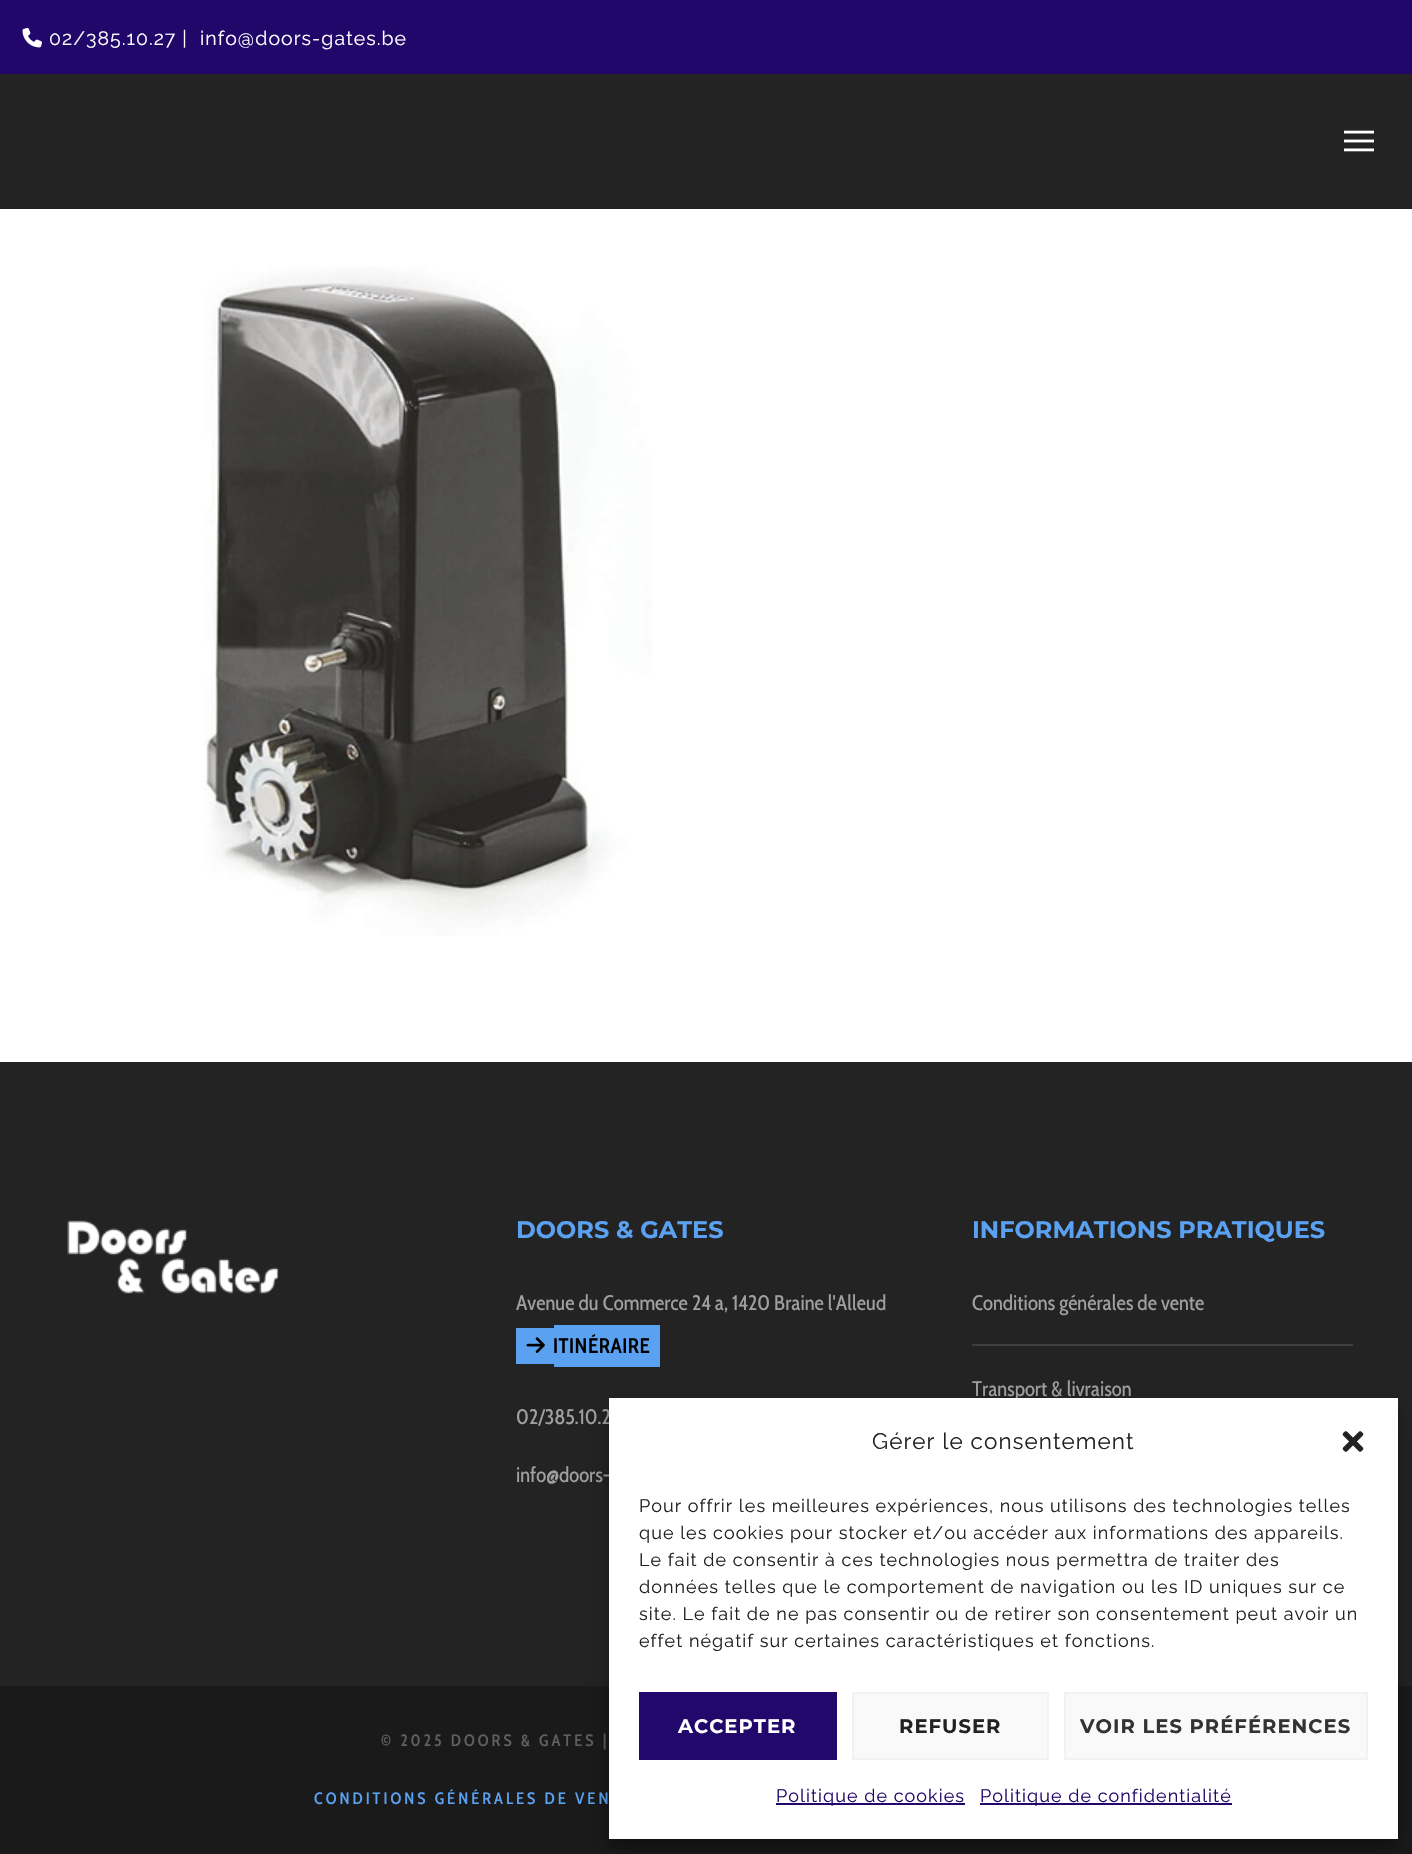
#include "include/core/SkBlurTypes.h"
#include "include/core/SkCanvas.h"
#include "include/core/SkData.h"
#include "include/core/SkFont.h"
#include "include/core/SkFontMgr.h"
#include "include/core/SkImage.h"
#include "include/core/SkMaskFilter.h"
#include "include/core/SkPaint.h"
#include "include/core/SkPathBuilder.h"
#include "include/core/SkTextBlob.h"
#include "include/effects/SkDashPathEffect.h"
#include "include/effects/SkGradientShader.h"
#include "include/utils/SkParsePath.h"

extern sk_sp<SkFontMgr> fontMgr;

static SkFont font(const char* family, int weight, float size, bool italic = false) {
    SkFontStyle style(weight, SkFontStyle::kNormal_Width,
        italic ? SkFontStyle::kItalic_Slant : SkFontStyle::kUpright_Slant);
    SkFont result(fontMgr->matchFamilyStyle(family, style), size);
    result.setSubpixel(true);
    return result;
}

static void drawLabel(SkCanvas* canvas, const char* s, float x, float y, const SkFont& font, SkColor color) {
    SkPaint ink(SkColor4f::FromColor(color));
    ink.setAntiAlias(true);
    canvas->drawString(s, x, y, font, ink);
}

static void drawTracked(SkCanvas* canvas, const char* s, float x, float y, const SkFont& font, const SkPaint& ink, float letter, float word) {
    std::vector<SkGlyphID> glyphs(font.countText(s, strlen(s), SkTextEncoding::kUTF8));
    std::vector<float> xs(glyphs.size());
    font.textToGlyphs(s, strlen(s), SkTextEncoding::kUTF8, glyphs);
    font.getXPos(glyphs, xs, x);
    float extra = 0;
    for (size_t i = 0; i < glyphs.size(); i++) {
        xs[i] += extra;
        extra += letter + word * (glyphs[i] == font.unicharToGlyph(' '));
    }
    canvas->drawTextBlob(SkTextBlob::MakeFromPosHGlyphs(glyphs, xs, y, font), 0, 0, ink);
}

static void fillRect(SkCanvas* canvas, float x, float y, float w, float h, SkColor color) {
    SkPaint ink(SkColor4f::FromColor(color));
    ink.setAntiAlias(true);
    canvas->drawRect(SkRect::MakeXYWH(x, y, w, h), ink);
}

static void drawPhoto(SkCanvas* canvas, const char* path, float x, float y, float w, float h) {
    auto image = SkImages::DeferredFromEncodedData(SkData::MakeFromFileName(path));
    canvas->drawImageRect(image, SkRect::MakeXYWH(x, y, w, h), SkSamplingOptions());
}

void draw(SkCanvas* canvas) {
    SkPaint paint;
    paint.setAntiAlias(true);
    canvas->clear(0xFFFFFFFF);
    fillRect(canvas, 0, 0, 1412, 74, 0xFF21076A);
    drawPhoto(canvas, "assets/img1.png", 22, 27, 20, 21);
    SkFont font1 = font("Raleway", 400, 19.5f);
    paint.setColor(0xFFFFFFFF);
    drawTracked(canvas, "02/385.10.27 |", 49, 45, font1, paint, 1.05f, 0);
    drawTracked(canvas, "info@doors-gates.be", 200, 45, font1, paint, 1.05f, 0);
    fillRect(canvas, 0, 74, 1412, 135, 0xFF232323);
    drawPhoto(canvas, "assets/img2.png", 1344, 130, 30, 22);
    drawPhoto(canvas, "assets/img3.png", 204, 266, 448, 670);
    fillRect(canvas, 0, 1062, 1412, 624, 0xFF232323);
    drawPhoto(canvas, "assets/img4.png", 67, 1220, 212, 74);
    SkFont font2 = font("Montserrat", 100, 24);
    drawLabel(canvas, "DOORS & GATES", 516, 1238, font2, 0xFF5BA1F1);
    SkFont font3 = font("Cabin Condensed", 400, 21);
    drawLabel(canvas, "Avenue du Commerce 24 a, 1420 Braine l'Alleud", 516, 1310, font3, 0xFFA0A0A0);
    fillRect(canvas, 516, 1328, 38, 36, 0xFF5BA1F1);
    fillRect(canvas, 554, 1325, 106, 42, 0xFF5BA1F1);
    drawPhoto(canvas, "assets/img5.png", 526, 1337, 19, 16);
    SkFont font4 = font("Cabin Condensed", 600, 21);
    paint.setColor(0xFF000000);
    drawTracked(canvas, "ITINÉRAIRE", 553, 1353, font4, paint, 0.5f, 0);
    drawLabel(canvas, "02/385.10.2", 516, 1424, font3, 0xFFA0A0A0);
    drawLabel(canvas, "info@doors-", 516, 1482, font3, 0xFFA0A0A0);
    drawLabel(canvas, "INFORMATIONS PRATIQUES", 972, 1238, font2, 0xFF5BA1F1);
    fillRect(canvas, 972, 1344, 381, 2, 0xFF3E3E3E);
    drawLabel(canvas, "Conditions générales de vente", 972, 1310, font3, 0xFFA0A0A0);
    drawLabel(canvas, "Transport & livraison", 972, 1396, font3, 0xFFA0A0A0);
    fillRect(canvas, 0, 1686, 1412, 168, 0xFF1A1A1A);
    SkFont font5 = font("Cabin Condensed", 500, 16.5f);
    paint.setColor(0xFF5F5F5F);
    drawTracked(canvas, "© 2025 DOORS & GATES |", 381, 1746, font5, paint, 3, 0);
    paint.setColor(0xFF5BA1F1);
    drawTracked(canvas, "CONDITIONS GÉNÉRALES DE VEN", 314, 1804, font5, paint, 3, 0);
    paint.setColor(0x3B000000);
    paint.setMaskFilter(SkMaskFilter::MakeBlur(kNormal_SkBlurStyle, 4.5f));
    canvas->drawRect(SkRect::MakeXYWH(609, 1407, 789, 441), paint);
    paint.setMaskFilter(nullptr);
    paint.setColor(0x30000000);
    paint.setMaskFilter(SkMaskFilter::MakeBlur(kNormal_SkBlurStyle, 15));
    canvas->drawRect(SkRect::MakeXYWH(609, 1413, 789, 441), paint);
    paint.setMaskFilter(nullptr);
    fillRect(canvas, 609, 1398, 789, 441, 0xFFFFFFFF);
    SkFont font6 = font("Raleway", 400, 22.5f);
    paint.setColor(0xFF222222);
    drawTracked(canvas, "Gérer le consentement", 872, 1449, font6, paint, 1.05f, 0);
    drawPhoto(canvas, "assets/img6.png", 1342, 1431, 22, 21);
    SkFont font7 = font("Raleway", 400, 18);
    drawTracked(canvas, "Pour offrir les meilleures expériences, nous utilisons des technologies telles", 639, 1512, font7, paint, 1.05f, 0);
    drawTracked(canvas, "que les cookies pour stocker et/ou accéder aux informations des appareils.", 639, 1539, font7, paint, 1.05f, 0);
    drawTracked(canvas, "Le fait de consentir à ces technologies nous permettra de traiter des", 639, 1566, font7, paint, 1.05f, 0);
    drawTracked(canvas, "données telles que le comportement de navigation ou les ID uniques sur ce", 639, 1593, font7, paint, 1.05f, 0);
    drawTracked(canvas, "site. Le fait de ne pas consentir ou de retirer son consentement peut avoir un", 639, 1620, font7, paint, 1.05f, 0);
    drawTracked(canvas, "effet négatif sur certaines caractéristiques et fonctions.", 639, 1647, font7, paint, 1.05f, 0);
    fillRect(canvas, 639, 1692, 198, 68, 0xFF21086A);
    SkFont font8 = font("Montserrat", 100, 19.5f);
    paint.setColor(0xFFFFFFFF);
    drawTracked(canvas, "ACCEPTER", 678, 1733, font8, paint, 1.05f, 0);
    paint.setColor(0xFFF9F9F9);
    canvas->drawRect(SkRect::MakeXYWH(853, 1693, 195, 66), paint);
    paint.setStroke(true);
    paint.setStrokeWidth(2);
    paint.setColor(0xFFF2F2F2);
    canvas->drawRect(SkRect::MakeXYWH(853, 1693, 195, 66), paint);
    paint.setStroke(false);
    paint.setColor(0xFF222222);
    drawTracked(canvas, "REFUSER", 899, 1733, font8, paint, 1.05f, 0);
    paint.setColor(0xFFF9F9F9);
    canvas->drawRect(SkRect::MakeXYWH(1065, 1693, 302, 66), paint);
    paint.setStroke(true);
    paint.setColor(0xFFF2F2F2);
    canvas->drawRect(SkRect::MakeXYWH(1065, 1693, 302, 66), paint);
    paint.setStroke(false);
    paint.setColor(0xFF333333);
    drawTracked(canvas, "VOIR LES PRÉFÉRENCES", 1080, 1733, font8, paint, 1.05f, 0);
    fillRect(canvas, 776, 1803, 189, 2, 0xFF21086A);
    paint.setColor(0xFF21086A);
    drawTracked(canvas, "Politique de cookies", 776, 1802, font7, paint, 1.05f, 0);
    fillRect(canvas, 980, 1803, 252, 2, 0xFF21086A);
    drawTracked(canvas, "Politique de confidentialité", 980, 1802, font7, paint, 1.05f, 0);
}
